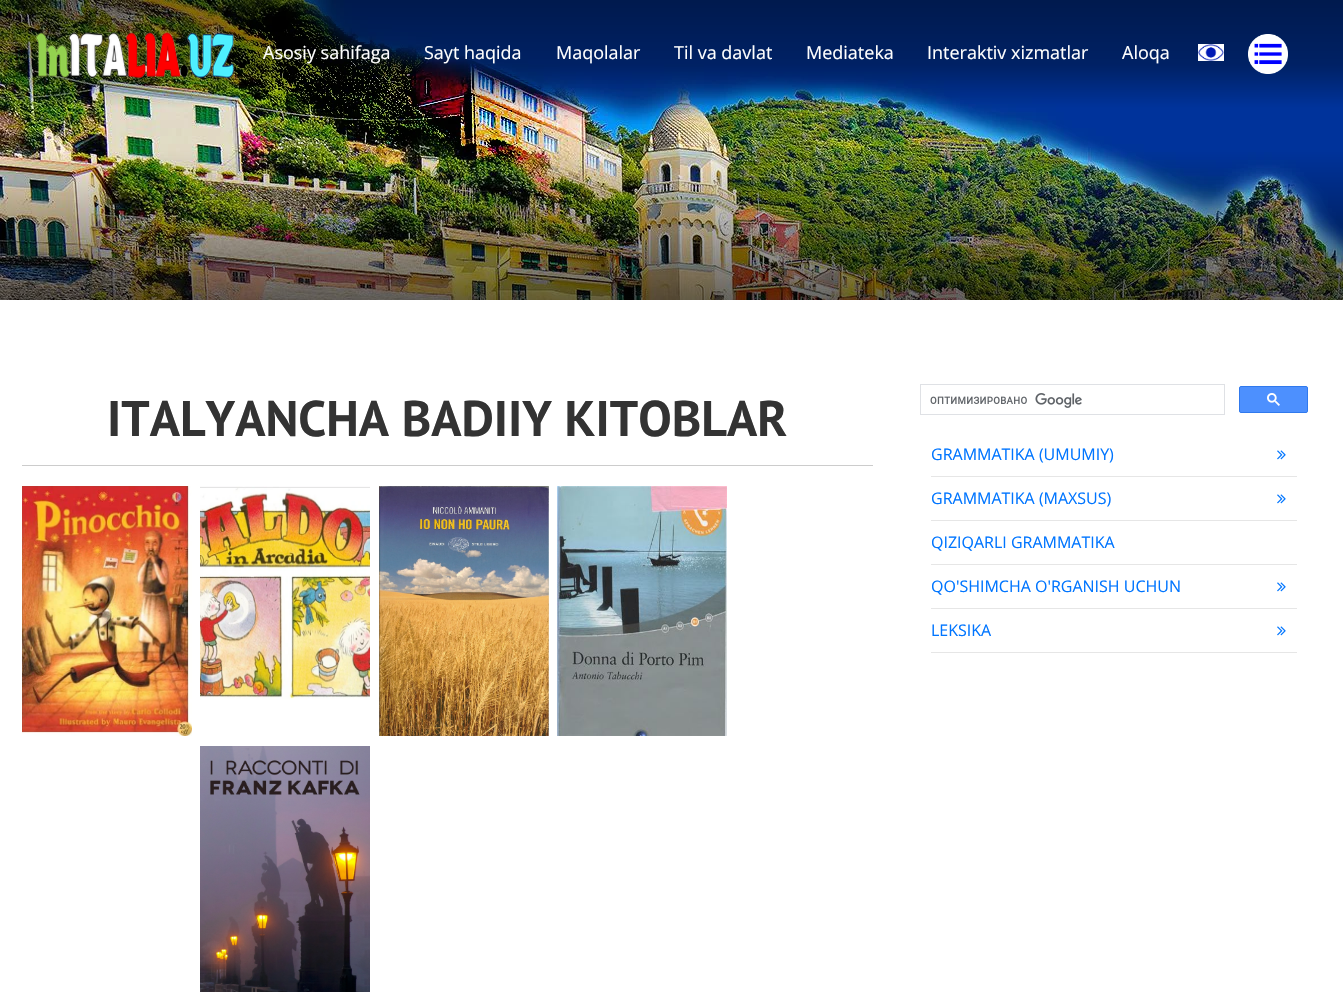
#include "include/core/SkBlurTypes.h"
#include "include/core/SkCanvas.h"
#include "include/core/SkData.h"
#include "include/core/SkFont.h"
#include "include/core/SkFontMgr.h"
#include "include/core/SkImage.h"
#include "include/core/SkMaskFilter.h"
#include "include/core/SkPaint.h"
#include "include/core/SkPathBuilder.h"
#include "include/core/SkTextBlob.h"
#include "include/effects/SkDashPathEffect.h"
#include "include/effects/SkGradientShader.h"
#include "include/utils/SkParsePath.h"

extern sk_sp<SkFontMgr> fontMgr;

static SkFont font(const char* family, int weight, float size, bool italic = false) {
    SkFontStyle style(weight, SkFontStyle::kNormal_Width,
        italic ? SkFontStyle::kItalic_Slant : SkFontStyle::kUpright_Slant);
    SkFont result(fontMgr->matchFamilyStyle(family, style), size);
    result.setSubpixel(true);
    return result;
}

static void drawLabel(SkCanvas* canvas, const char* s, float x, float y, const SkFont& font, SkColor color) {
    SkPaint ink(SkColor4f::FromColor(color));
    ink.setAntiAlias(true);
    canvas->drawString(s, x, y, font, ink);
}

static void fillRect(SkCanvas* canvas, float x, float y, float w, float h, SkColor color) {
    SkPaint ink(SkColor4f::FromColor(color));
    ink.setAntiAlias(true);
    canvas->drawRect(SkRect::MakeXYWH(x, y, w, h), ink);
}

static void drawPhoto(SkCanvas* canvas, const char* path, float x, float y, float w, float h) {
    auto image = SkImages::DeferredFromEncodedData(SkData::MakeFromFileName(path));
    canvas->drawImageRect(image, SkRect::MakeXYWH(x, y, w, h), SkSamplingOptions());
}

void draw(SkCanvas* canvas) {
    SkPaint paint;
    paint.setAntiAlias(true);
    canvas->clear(0xFFFFFFFF);
    drawPhoto(canvas, "assets/img1.png", 0, 0, 1343, 300);
    drawPhoto(canvas, "assets/img2.png", 35, 32, 200, 47);
    SkFont font1 = font("Open Sans", 400, 18);
    drawLabel(canvas, "Asosiy sahifaga", 263, 59, font1, 0xFFFFFFFF);
    drawLabel(canvas, "Sayt haqida", 424, 59, font1, 0xFFFFFFFF);
    drawLabel(canvas, "Maqolalar", 556, 59, font1, 0xFFFFFFFF);
    drawLabel(canvas, "Til va davlat", 674, 59, font1, 0xFFFFFFFF);
    drawLabel(canvas, "Mediateka", 806, 59, font1, 0xFFFFFFFF);
    drawLabel(canvas, "Interaktiv xizmatlar", 927, 59, font1, 0xFFFFFFFF);
    drawLabel(canvas, "Aloqa", 1122, 59, font1, 0xFFFFFFFF);
    drawPhoto(canvas, "assets/img3.png", 1198, 44, 26, 17);
    drawPhoto(canvas, "assets/img4.png", 1248, 34, 40, 40);
    SkFont font2 = font("PT Sans", 700, 50);
    drawLabel(canvas, "ITALYANCHA BADIIY KITOBLAR", 107, 436, font2, 0xFF333333);
    fillRect(canvas, 22, 465, 851, 1, 0xFFCCCCCC);
    drawPhoto(canvas, "assets/img5.png", 22, 486, 170, 250);
    drawPhoto(canvas, "assets/img6.png", 200, 486, 170, 214);
    drawPhoto(canvas, "assets/img7.png", 379, 486, 170, 250);
    drawPhoto(canvas, "assets/img8.png", 557, 486, 170, 250);
    drawPhoto(canvas, "assets/img9.png", 200, 746, 170, 246);
    paint.setStroke(true);
    paint.setStrokeWidth(1);
    paint.setColor(0xFFDFE1E5);
    canvas->drawRect(SkRect::MakeXYWH(920.5f, 384.5f, 304, 30), paint);
    drawPhoto(canvas, "assets/img10.png", 930, 393, 152, 15);
    paint.setStroke(false);
    paint.setColor(0xFF4D90FE);
    canvas->drawRoundRect(SkRect::MakeXYWH(1239.5f, 386.5f, 68, 26), 1.5f, 1.5f, paint);
    paint.setStroke(true);
    paint.setColor(0xFF3079ED);
    canvas->drawRoundRect(SkRect::MakeXYWH(1239.5f, 386.5f, 68, 26), 1.5f, 1.5f, paint);
    drawPhoto(canvas, "assets/img11.png", 1267, 393, 13, 13);
    fillRect(canvas, 931, 476, 366, 1, 0xFFE6E6E6);
    SkFont font3 = font("Open Sans", 400, 16);
    drawLabel(canvas, "GRAMMATIKA (UMUMIY)", 931, 460, font3, 0xFF0075FF);
    drawPhoto(canvas, "assets/img12.png", 1277, 450, 9, 10);
    fillRect(canvas, 931, 520, 366, 1, 0xFFE6E6E6);
    drawLabel(canvas, "GRAMMATIKA (MAXSUS)", 931, 504, font3, 0xFF0075FF);
    drawPhoto(canvas, "assets/img12.png", 1277, 494, 9, 10);
    fillRect(canvas, 931, 564, 366, 1, 0xFFE6E6E6);
    drawLabel(canvas, "QIZIQARLI GRAMMATIKA", 931, 548, font3, 0xFF0075FF);
    fillRect(canvas, 931, 608, 366, 1, 0xFFE6E6E6);
    drawLabel(canvas, "QO'SHIMCHA O'RGANISH UCHUN", 931, 592, font3, 0xFF0075FF);
    drawPhoto(canvas, "assets/img12.png", 1277, 582, 9, 10);
    fillRect(canvas, 931, 652, 366, 1, 0xFFE6E6E6);
    drawLabel(canvas, "LEKSIKA", 931, 636, font3, 0xFF0075FF);
    drawPhoto(canvas, "assets/img12.png", 1277, 626, 9, 10);
}
